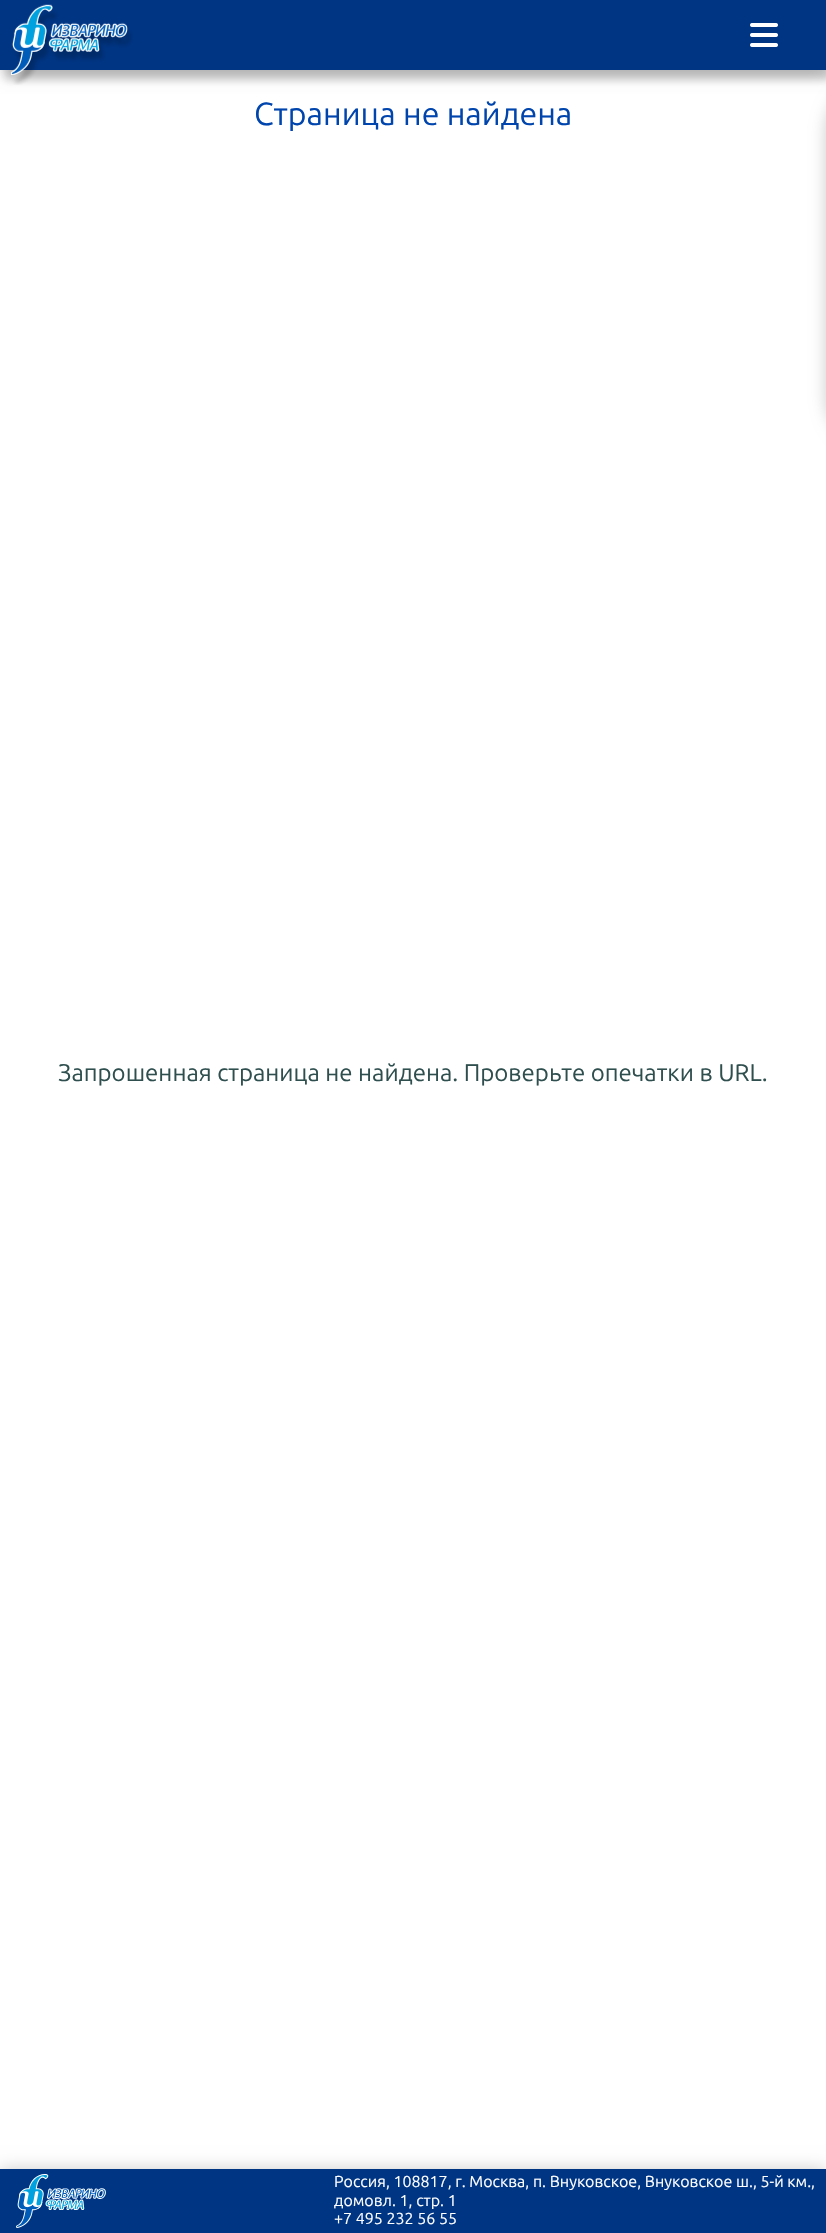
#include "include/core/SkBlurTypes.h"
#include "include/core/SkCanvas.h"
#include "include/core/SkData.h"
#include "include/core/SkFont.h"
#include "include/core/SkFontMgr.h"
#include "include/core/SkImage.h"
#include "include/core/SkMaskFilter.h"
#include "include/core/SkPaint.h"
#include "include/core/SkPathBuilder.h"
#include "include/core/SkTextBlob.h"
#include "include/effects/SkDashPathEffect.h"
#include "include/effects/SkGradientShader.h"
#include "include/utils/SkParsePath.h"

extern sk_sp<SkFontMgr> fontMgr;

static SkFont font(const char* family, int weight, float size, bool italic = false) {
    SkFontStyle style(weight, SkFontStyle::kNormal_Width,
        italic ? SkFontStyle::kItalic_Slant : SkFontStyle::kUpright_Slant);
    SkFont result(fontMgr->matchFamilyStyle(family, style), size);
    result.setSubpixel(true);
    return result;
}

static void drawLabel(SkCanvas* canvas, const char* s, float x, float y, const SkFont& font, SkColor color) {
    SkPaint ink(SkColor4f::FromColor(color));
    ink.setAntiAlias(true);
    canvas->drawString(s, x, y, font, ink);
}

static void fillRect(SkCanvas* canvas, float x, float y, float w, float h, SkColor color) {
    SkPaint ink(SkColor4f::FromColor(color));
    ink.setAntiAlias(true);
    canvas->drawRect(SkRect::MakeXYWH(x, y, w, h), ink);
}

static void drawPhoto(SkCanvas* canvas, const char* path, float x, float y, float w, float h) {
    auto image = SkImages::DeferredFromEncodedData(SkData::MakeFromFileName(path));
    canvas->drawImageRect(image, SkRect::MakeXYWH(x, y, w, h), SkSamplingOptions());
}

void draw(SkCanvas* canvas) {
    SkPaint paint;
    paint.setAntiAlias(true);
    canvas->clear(0xFFFFFFFF);
    paint.setColor(0x33000000);
    paint.setMaskFilter(SkMaskFilter::MakeBlur(kNormal_SkBlurStyle, 8));
    canvas->drawRect(SkRect::MakeXYWH(0, 0, 826, 70), paint);
    paint.setMaskFilter(nullptr);
    paint.setMaskFilter(SkMaskFilter::MakeBlur(kNormal_SkBlurStyle, 4));
    canvas->drawRect(SkRect::MakeXYWH(5, 10, 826, 70), paint);
    paint.setMaskFilter(nullptr);
    fillRect(canvas, 0, 0, 826, 70, 0xFF003584);
    drawPhoto(canvas, "assets/img1.png", 11, 4, 122, 81);
    drawPhoto(canvas, "assets/img2.png", 750, 23, 28, 24);
    paint.setMaskFilter(SkMaskFilter::MakeBlur(kNormal_SkBlurStyle, 8));
    canvas->drawRoundRect(SkRect::MakeXYWH(826, 80, 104, 368), 80, 80, paint);
    paint.setMaskFilter(nullptr);
    SkFont font1 = font("Ubuntu Sans", 400, 32);
    drawLabel(canvas, "Страница не найдена", 254, 125, font1, 0xFF0045AD);
    SkFont font2 = font("Ubuntu Sans", 400, 24);
    drawLabel(canvas, "Запрошенная страница не найдена. Проверьте опечатки в URL.", 58, 1081, font2, 0xFF2F4F4F);
    paint.setMaskFilter(SkMaskFilter::MakeBlur(kNormal_SkBlurStyle, 8));
    canvas->drawRect(SkRect::MakeXYWH(0, 2169, 826, 64), paint);
    paint.setMaskFilter(nullptr);
    fillRect(canvas, 0, 2169, 826, 64, 0xFF003584);
    drawPhoto(canvas, "assets/img3.png", 16, 2174, 90, 54);
    SkFont font3 = font("Ubuntu Sans", 400, 16);
    drawLabel(canvas, "Россия, 108817, г. Москва, п. Внуковское, Внуковское ш., 5-й км.,", 334, 2187, font3, 0xFFFFFFFF);
    drawLabel(canvas, "домовл. 1, стр. 1", 334, 2206, font3, 0xFFFFFFFF);
    drawLabel(canvas, "+7 495 232 56 55", 334, 2224, font3, 0xFFFFFFFF);
}
